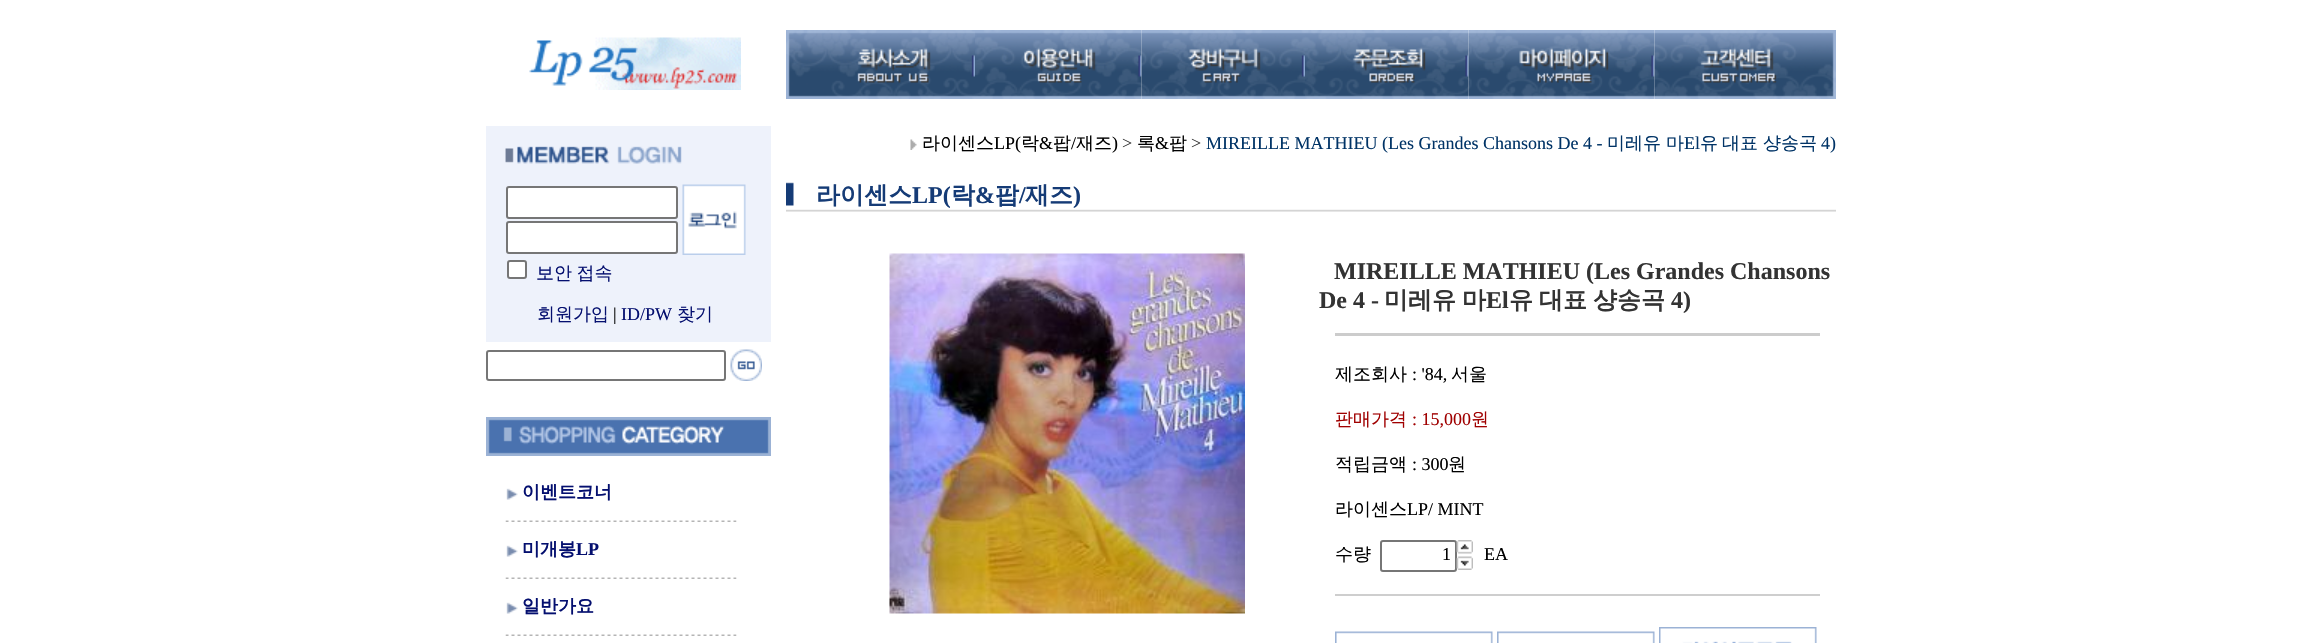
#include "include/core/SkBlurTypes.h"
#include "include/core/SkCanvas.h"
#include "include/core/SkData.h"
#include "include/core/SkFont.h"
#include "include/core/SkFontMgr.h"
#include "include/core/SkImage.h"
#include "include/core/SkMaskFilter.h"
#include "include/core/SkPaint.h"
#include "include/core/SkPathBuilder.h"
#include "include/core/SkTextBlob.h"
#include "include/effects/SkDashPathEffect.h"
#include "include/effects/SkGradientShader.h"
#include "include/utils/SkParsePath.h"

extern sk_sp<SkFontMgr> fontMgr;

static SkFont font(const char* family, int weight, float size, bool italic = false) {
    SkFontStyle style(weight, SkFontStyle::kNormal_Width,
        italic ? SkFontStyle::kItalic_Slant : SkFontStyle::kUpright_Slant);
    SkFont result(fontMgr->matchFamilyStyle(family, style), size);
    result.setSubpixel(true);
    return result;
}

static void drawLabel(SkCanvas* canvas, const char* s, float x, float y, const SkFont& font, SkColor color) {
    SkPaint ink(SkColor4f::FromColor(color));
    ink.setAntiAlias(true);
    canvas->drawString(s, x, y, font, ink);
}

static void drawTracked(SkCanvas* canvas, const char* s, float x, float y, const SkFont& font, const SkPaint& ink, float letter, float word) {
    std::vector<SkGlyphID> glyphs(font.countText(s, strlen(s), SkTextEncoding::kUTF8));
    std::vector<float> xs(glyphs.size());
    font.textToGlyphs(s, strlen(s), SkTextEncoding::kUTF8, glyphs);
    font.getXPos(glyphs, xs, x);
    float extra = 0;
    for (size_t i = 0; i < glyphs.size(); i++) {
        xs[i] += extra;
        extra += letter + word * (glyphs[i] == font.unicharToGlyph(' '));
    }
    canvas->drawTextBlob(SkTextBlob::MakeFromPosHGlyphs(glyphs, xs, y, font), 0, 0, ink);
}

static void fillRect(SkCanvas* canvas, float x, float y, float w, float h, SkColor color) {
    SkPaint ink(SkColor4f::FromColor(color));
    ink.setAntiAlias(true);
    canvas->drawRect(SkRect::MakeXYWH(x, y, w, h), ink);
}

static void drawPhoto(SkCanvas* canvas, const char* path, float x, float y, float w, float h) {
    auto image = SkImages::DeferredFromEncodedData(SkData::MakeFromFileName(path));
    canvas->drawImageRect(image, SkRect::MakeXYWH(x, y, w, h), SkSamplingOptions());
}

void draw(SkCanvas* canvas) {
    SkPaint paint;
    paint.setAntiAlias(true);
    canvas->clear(0xFFFFFFFF);
    drawPhoto(canvas, "assets/img1.png", 529, 37, 212, 53);
    drawPhoto(canvas, "assets/img2.png", 786, 30, 189, 69);
    drawPhoto(canvas, "assets/img3.png", 975, 30, 167, 69);
    drawPhoto(canvas, "assets/img4.png", 1141, 30, 164, 69);
    drawPhoto(canvas, "assets/img5.png", 1305, 30, 164, 69);
    drawPhoto(canvas, "assets/img6.png", 1468, 30, 187, 69);
    drawPhoto(canvas, "assets/img7.png", 1654, 30, 182, 69);
    fillRect(canvas, 486, 126, 285, 216, 0xFFEEF2FB);
    drawPhoto(canvas, "assets/img8.png", 505, 146, 177, 18);
    paint.setColor(0xFFFFFFFF);
    canvas->drawRoundRect(SkRect::MakeXYWH(507, 187, 170, 31), 2, 2, paint);
    paint.setStroke(true);
    paint.setStrokeWidth(2);
    paint.setColor(0xFF767676);
    canvas->drawRoundRect(SkRect::MakeXYWH(507, 187, 170, 31), 2, 2, paint);
    drawPhoto(canvas, "assets/img9.png", 682, 184, 64, 71);
    paint.setStroke(false);
    paint.setColor(0xFFFFFFFF);
    canvas->drawRoundRect(SkRect::MakeXYWH(507, 222, 170, 31), 2, 2, paint);
    paint.setStroke(true);
    paint.setColor(0xFF767676);
    canvas->drawRoundRect(SkRect::MakeXYWH(507, 222, 170, 31), 2, 2, paint);
    paint.setStroke(false);
    paint.setColor(0xFFFFFFFF);
    canvas->drawRoundRect(SkRect::MakeXYWH(508, 261, 18, 17), 2, 2, paint);
    paint.setStroke(true);
    paint.setColor(0xFF767676);
    canvas->drawRoundRect(SkRect::MakeXYWH(508, 261, 18, 17), 2, 2, paint);
    SkFont font1 = font("WenQuanYi Zen Hei", 500, 18);
    paint.setStroke(false);
    paint.setColor(0xFF040F6F);
    drawTracked(canvas, "보안 접속", 536, 279, font1, paint, 0, -1);
    drawLabel(canvas, "회원가입", 537, 320, font1, 0xFF040F6F);
    SkFont font2 = font("Liberation Serif", 400, 18);
    drawLabel(canvas, "|", 613, 320, font2, 0xFF000000);
    drawLabel(canvas, "ID/PW", 621, 320, font2, 0xFF040F6F);
    drawLabel(canvas, "찾기", 677, 320, font1, 0xFF040F6F);
    paint.setStroke(true);
    paint.setColor(0xFF767676);
    canvas->drawRoundRect(SkRect::MakeXYWH(487, 351, 238, 29), 2, 2, paint);
    drawPhoto(canvas, "assets/img10.png", 730, 349, 32, 32);
    drawPhoto(canvas, "assets/img11.png", 486, 417, 285, 39);
    drawPhoto(canvas, "assets/img12.png", 506, 488, 12, 12);
    SkFont font3 = font("WenQuanYi Zen Hei", 700, 18);
    drawLabel(canvas, "이벤트코너", 522, 498, font3, 0xFF040F6F);
    drawPhoto(canvas, "assets/img13.png", 505, 520, 232, 2);
    drawPhoto(canvas, "assets/img12.png", 506, 545, 12, 12);
    drawLabel(canvas, "미개봉", 522, 555, font3, 0xFF040F6F);
    SkFont font4 = font("Liberation Serif", 700, 18);
    drawLabel(canvas, "LP", 576, 555, font4, 0xFF040F6F);
    drawPhoto(canvas, "assets/img13.png", 505, 577, 232, 2);
    drawPhoto(canvas, "assets/img12.png", 506, 602, 12, 12);
    drawLabel(canvas, "일반가요", 522, 612, font3, 0xFF040F6F);
    drawPhoto(canvas, "assets/img13.png", 505, 634, 232, 2);
    drawPhoto(canvas, "assets/img14.png", 910, 139, 7, 11);
    drawLabel(canvas, "라이센스", 922, 149, font1, 0xFF000000);
    drawLabel(canvas, "LP(", 994, 149, font2, 0xFF000000);
    drawLabel(canvas, "락", 1021, 149, font1, 0xFF000000);
    drawLabel(canvas, "&", 1039, 149, font2, 0xFF000000);
    drawLabel(canvas, "팝", 1053, 149, font1, 0xFF000000);
    drawLabel(canvas, "/", 1071, 149, font2, 0xFF000000);
    drawLabel(canvas, "재즈", 1076, 149, font1, 0xFF000000);
    drawLabel(canvas, ")", 1112, 149, font2, 0xFF000000);
    drawLabel(canvas, ">", 1122, 149, font2, 0xFF333333);
    drawLabel(canvas, "록", 1137, 149, font1, 0xFF000000);
    drawLabel(canvas, "&", 1155, 149, font2, 0xFF000000);
    drawLabel(canvas, "팝", 1169, 149, font1, 0xFF000000);
    drawLabel(canvas, ">", 1191, 149, font2, 0xFF333333);
    drawLabel(canvas, "MIREILLE MATHIEU (Les Grandes Chansons De 4 -", 1206, 149, font2, 0xFF003366);
    drawLabel(canvas, "미레유", 1607, 149, font1, 0xFF003366);
    drawLabel(canvas, "마", 1666, 149, font1, 0xFF003366);
    drawLabel(canvas, "El", 1684, 149, font2, 0xFF003366);
    drawLabel(canvas, "유", 1700, 149, font1, 0xFF003366);
    drawLabel(canvas, "대표", 1722, 149, font1, 0xFF003366);
    drawLabel(canvas, "샹송곡", 1763, 149, font1, 0xFF003366);
    drawLabel(canvas, "4)", 1821, 149, font2, 0xFF003366);
    drawPhoto(canvas, "assets/img15.png", 786, 182, 1050, 30);
    SkFont font5 = font("WenQuanYi Zen Hei", 700, 24);
    drawLabel(canvas, "라이센스", 816, 203, font5, 0xFF153B76);
    SkFont font6 = font("Liberation Serif", 700, 24);
    drawLabel(canvas, "LP(", 912, 203, font6, 0xFF153B76);
    drawLabel(canvas, "락", 951, 203, font5, 0xFF153B76);
    drawLabel(canvas, "&", 975, 203, font6, 0xFF153B76);
    drawLabel(canvas, "팝", 995, 203, font5, 0xFF153B76);
    drawLabel(canvas, "/", 1019, 203, font6, 0xFF153B76);
    drawLabel(canvas, "재즈", 1025, 203, font5, 0xFF153B76);
    drawLabel(canvas, ")", 1073, 203, font6, 0xFF153B76);
    drawPhoto(canvas, "assets/img16.png", 889, 253, 356, 361);
    drawLabel(canvas, "MIREILLE MATHIEU (Les Grandes Chansons", 1334, 279, font6, 0xFF333333);
    drawLabel(canvas, "De 4 -", 1319, 308, font6, 0xFF333333);
    drawLabel(canvas, "미레유", 1384, 308, font5, 0xFF333333);
    drawLabel(canvas, "마", 1462, 308, font5, 0xFF333333);
    drawLabel(canvas, "El", 1486, 308, font6, 0xFF333333);
    drawLabel(canvas, "유", 1509, 308, font5, 0xFF333333);
    drawLabel(canvas, "대표", 1539, 308, font5, 0xFF333333);
    drawLabel(canvas, "샹송곡", 1593, 308, font5, 0xFF333333);
    drawLabel(canvas, "4)", 1671, 308, font6, 0xFF333333);
    fillRect(canvas, 1335, 333, 485, 3, 0xFFCCCCCC);
    drawLabel(canvas, "제조회사", 1335, 380, font1, 0xFF000000);
    drawLabel(canvas, ": '84,", 1412, 380, font2, 0xFF000000);
    drawLabel(canvas, "서울", 1451, 380, font1, 0xFF000000);
    drawLabel(canvas, "판매가격", 1335, 425, font1, 0xFFA00000);
    drawLabel(canvas, ": 15,000", 1412, 425, font2, 0xFFA00000);
    drawLabel(canvas, "원", 1471, 425, font1, 0xFFA00000);
    drawLabel(canvas, "적립금액", 1335, 470, font1, 0xFF000000);
    drawLabel(canvas, ": 300", 1412, 470, font2, 0xFF000000);
    drawLabel(canvas, "원", 1448, 470, font1, 0xFF000000);
    drawLabel(canvas, "라이센스", 1335, 515, font1, 0xFF000000);
    drawLabel(canvas, "LP/ MINT", 1407, 515, font2, 0xFF000000);
    drawLabel(canvas, "수량", 1335, 560, font1, 0xFF000000);
    canvas->drawRoundRect(SkRect::MakeXYWH(1381, 541, 75, 30), 2, 2, paint);
    drawLabel(canvas, "1", 1442, 560, font2, 0xFF000000);
    drawPhoto(canvas, "assets/img17.png", 1456, 540, 17, 14);
    drawLabel(canvas, "EA", 1484, 560, font2, 0xFF000000);
    drawPhoto(canvas, "assets/img18.png", 1456, 556, 17, 14);
    fillRect(canvas, 1335, 594, 485, 2, 0xFFCECECE);
    drawPhoto(canvas, "assets/img19.png", 1335, 631, 158, 12);
    drawPhoto(canvas, "assets/img19.png", 1497, 631, 158, 12);
    drawPhoto(canvas, "assets/img20.png", 1659, 627, 158, 16);
}
